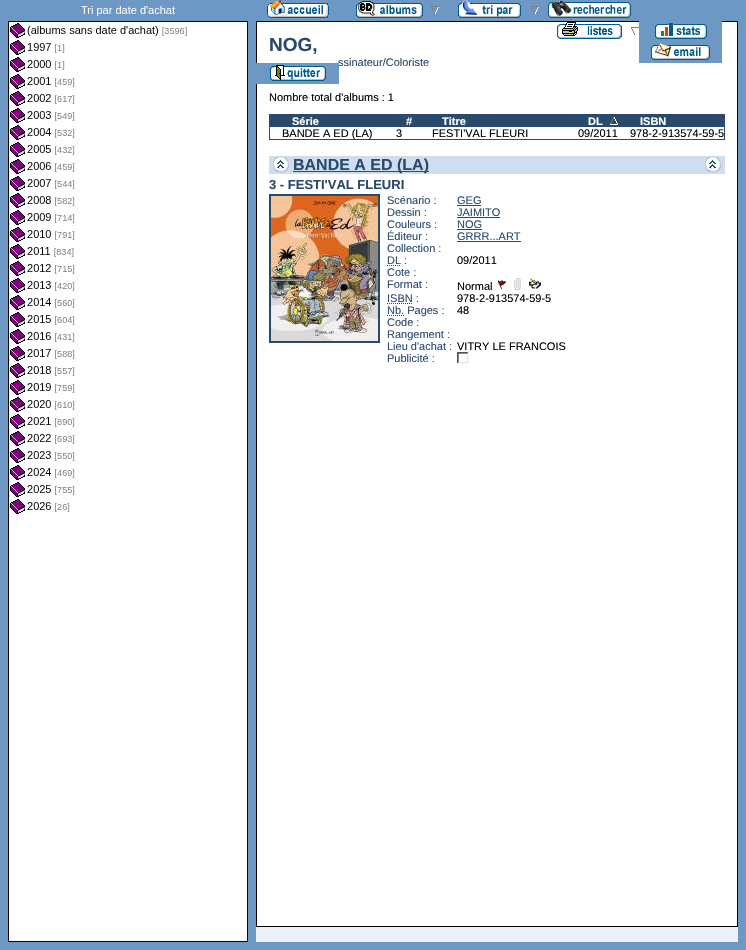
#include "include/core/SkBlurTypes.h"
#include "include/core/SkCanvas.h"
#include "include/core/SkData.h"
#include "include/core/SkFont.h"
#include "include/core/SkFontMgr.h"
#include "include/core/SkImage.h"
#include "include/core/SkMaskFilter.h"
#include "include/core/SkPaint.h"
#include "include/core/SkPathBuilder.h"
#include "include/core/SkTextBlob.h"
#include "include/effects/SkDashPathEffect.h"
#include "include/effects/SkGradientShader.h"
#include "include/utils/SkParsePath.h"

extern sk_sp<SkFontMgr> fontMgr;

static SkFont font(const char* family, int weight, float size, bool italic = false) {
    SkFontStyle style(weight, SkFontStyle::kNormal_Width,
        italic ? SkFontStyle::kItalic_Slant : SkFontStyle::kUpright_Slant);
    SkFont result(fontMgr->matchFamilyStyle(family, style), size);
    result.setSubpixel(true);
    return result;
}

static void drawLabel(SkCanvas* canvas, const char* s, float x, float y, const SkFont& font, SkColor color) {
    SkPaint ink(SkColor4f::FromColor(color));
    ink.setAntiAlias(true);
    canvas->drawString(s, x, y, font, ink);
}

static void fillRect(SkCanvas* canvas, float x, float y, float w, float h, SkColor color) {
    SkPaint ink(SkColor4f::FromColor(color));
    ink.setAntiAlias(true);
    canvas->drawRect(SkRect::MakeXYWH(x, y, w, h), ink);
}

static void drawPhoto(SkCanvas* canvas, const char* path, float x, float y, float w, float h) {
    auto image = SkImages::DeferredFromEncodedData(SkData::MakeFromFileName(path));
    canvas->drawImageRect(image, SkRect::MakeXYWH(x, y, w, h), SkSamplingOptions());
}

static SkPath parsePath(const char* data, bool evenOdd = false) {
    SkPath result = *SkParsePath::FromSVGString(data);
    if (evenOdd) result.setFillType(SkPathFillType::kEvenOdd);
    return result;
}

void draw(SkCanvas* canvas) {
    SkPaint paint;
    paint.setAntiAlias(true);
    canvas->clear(0xFF6D98C3);
    drawPhoto(canvas, "assets/img1.png", 8, 6, 240, 936);
    drawPhoto(canvas, "assets/img2.png", 267, 0, 62, 18);
    drawPhoto(canvas, "assets/img3.png", 431, 6, 8, 8);
    drawPhoto(canvas, "assets/img4.png", 356, 1, 67, 17);
    drawPhoto(canvas, "assets/img3.png", 531, 6, 8, 8);
    drawPhoto(canvas, "assets/img5.png", 458, 0, 63, 18);
    drawPhoto(canvas, "assets/img6.png", 548, 1, 83, 17);
    paint.setColor(0xFFFFFFFF);
    canvas->drawRect(SkRect::MakeXYWH(256.5f, 21.5f, 481, 905), paint);
    paint.setStroke(true);
    paint.setStrokeWidth(1);
    paint.setColor(0xFF000000);
    canvas->drawRect(SkRect::MakeXYWH(256.5f, 21.5f, 481, 905), paint);
    drawPhoto(canvas, "assets/img7.png", 631, 27, 8, 8);
    drawPhoto(canvas, "assets/img8.png", 557, 22, 65, 17);
    fillRect(canvas, 639, 21, 83, 42, 0xFF6D98C3);
    drawPhoto(canvas, "assets/img9.png", 655, 23, 52, 16);
    drawPhoto(canvas, "assets/img10.png", 651, 43, 59, 17);
    SkFont font1 = font("Liberation Sans", 400, 11);
    drawLabel(canvas, "ssinateur/Coloriste", 338, 66, font1, 0xFF294A6B);
    fillRect(canvas, 256, 63, 83, 21, 0xFF6D98C3);
    drawPhoto(canvas, "assets/img11.png", 270, 65, 56, 16);
    SkFont font2 = font("Liberation Sans", 700, 19);
    drawLabel(canvas, "NOG,", 269, 51, font2, 0xFF294A6B);
    drawLabel(canvas, "Nombre total d'albums : 1", 269, 101, font1, 0xFF000000);
    paint.setColor(0xFF294A6B);
    canvas->drawRect(SkRect::MakeXYWH(269.5f, 114.5f, 455, 25), paint);
    fillRect(canvas, 270, 115, 454, 12, 0xFF294A6B);
    SkFont font3 = font("Liberation Sans", 700, 11);
    drawLabel(canvas, "Série", 292, 125, font3, 0xFFFFFFFF);
    drawLabel(canvas, "#", 406, 125, font3, 0xFFFFFFFF);
    drawLabel(canvas, "Titre", 442, 125, font3, 0xFFFFFFFF);
    drawPhoto(canvas, "assets/img12.png", 610, 117, 8, 8);
    drawLabel(canvas, "DL", 588, 125, font3, 0xFFFFFFFF);
    drawLabel(canvas, "ISBN", 640, 125, font3, 0xFFFFFFFF);
    drawLabel(canvas, "BANDE A ED (LA)", 282, 137, font1, 0xFF000000);
    drawLabel(canvas, "3", 396, 137, font1, 0xFF000000);
    drawLabel(canvas, "FESTI'VAL FLEURI", 432, 137, font1, 0xFF000000);
    drawLabel(canvas, "09/2011", 578, 137, font1, 0xFF000000);
    drawLabel(canvas, "978-2-913574-59-5", 630, 137, font1, 0xFF000000);
    fillRect(canvas, 269, 156, 456, 18, 0xFFCEDEEF);
    drawPhoto(canvas, "assets/img13.png", 273, 156, 16, 17);
    drawPhoto(canvas, "assets/img13.png", 705, 156, 16, 17);
    fillRect(canvas, 293, 171, 136, 1, 0xFF294A6B);
    SkFont font4 = font("Liberation Sans", 700, 16);
    drawLabel(canvas, "BANDE A ED (LA)", 293, 170, font4, 0xFF294A6B);
    SkFont font5 = font("Liberation Sans", 700, 13);
    drawLabel(canvas, "3 - FESTI'VAL FLEURI", 269, 189, font5, 0xFF294A6B);
    paint.setStrokeWidth(2);
    canvas->drawRect(SkRect::MakeXYWH(270, 195, 109, 147), paint);
    drawPhoto(canvas, "assets/img14.png", 271, 196, 107, 145);
    drawLabel(canvas, "Scénario :", 387, 204, font1, 0xFF294A6B);
    drawLabel(canvas, "GEG", 457, 204, font1, 0xFF294A6B);
    fillRect(canvas, 457, 205, 24, 1, 0xFF294A6B);
    drawLabel(canvas, "Dessin :", 387, 216, font1, 0xFF294A6B);
    drawLabel(canvas, "JAIMITO", 457, 216, font1, 0xFF294A6B);
    fillRect(canvas, 457, 217, 43, 1, 0xFF294A6B);
    drawLabel(canvas, "Couleurs :", 387, 228, font1, 0xFF294A6B);
    drawLabel(canvas, "NOG", 457, 228, font1, 0xFF294A6B);
    fillRect(canvas, 457, 229, 25, 1, 0xFF294A6B);
    drawLabel(canvas, "Éditeur :", 387, 240, font1, 0xFF294A6B);
    drawLabel(canvas, "GRRR...ART", 457, 240, font1, 0xFF294A6B);
    fillRect(canvas, 457, 241, 64, 1, 0xFF294A6B);
    drawLabel(canvas, "Collection :", 387, 252, font1, 0xFF294A6B);
    drawLabel(canvas, "DL :", 387, 264, font1, 0xFF294A6B);
    paint.setStrokeWidth(1);
    paint.setPathEffect(SkDashPathEffect::Make({{1, 1}}, 0));
    canvas->drawPath(parsePath("M387 265.5H401"), paint);
    paint.setPathEffect(nullptr);
    drawLabel(canvas, "09/2011", 457, 264, font1, 0xFF000000);
    drawLabel(canvas, "Cote :", 387, 276, font1, 0xFF294A6B);
    drawLabel(canvas, "Format :", 387, 288, font1, 0xFF294A6B);
    drawLabel(canvas, "Normal", 457, 290, font1, 0xFF000000);
    drawPhoto(canvas, "assets/img15.png", 498, 280, 8, 9);
    drawPhoto(canvas, "assets/img16.png", 514, 278, 7, 12);
    drawPhoto(canvas, "assets/img17.png", 529, 278, 12, 11);
    drawLabel(canvas, "ISBN :", 387, 302, font1, 0xFF294A6B);
    paint.setPathEffect(SkDashPathEffect::Make({{1, 1}}, 0));
    canvas->drawPath(parsePath("M387 303.5H412.5"), paint);
    paint.setPathEffect(nullptr);
    drawLabel(canvas, "978-2-913574-59-5", 457, 302, font1, 0xFF000000);
    paint.setPathEffect(SkDashPathEffect::Make({{1, 1}}, 0));
    canvas->drawPath(parsePath("M387 315.5H404"), paint);
    paint.setPathEffect(nullptr);
    drawLabel(canvas, "Nb. Pages :", 387, 314, font1, 0xFF294A6B);
    drawLabel(canvas, "48", 457, 314, font1, 0xFF000000);
    drawLabel(canvas, "Code :", 387, 326, font1, 0xFF294A6B);
    drawLabel(canvas, "Rangement :", 387, 338, font1, 0xFF294A6B);
    drawLabel(canvas, "Lieu d'achat :", 387, 350, font1, 0xFF294A6B);
    drawLabel(canvas, "VITRY LE FRANCOIS", 457, 350, font1, 0xFF000000);
    drawLabel(canvas, "Publicité :", 387, 362, font1, 0xFF294A6B);
    drawPhoto(canvas, "assets/img18.png", 457, 352, 12, 12);
    fillRect(canvas, 256, 927, 482, 15, 0xFFEBF1F7);
}
